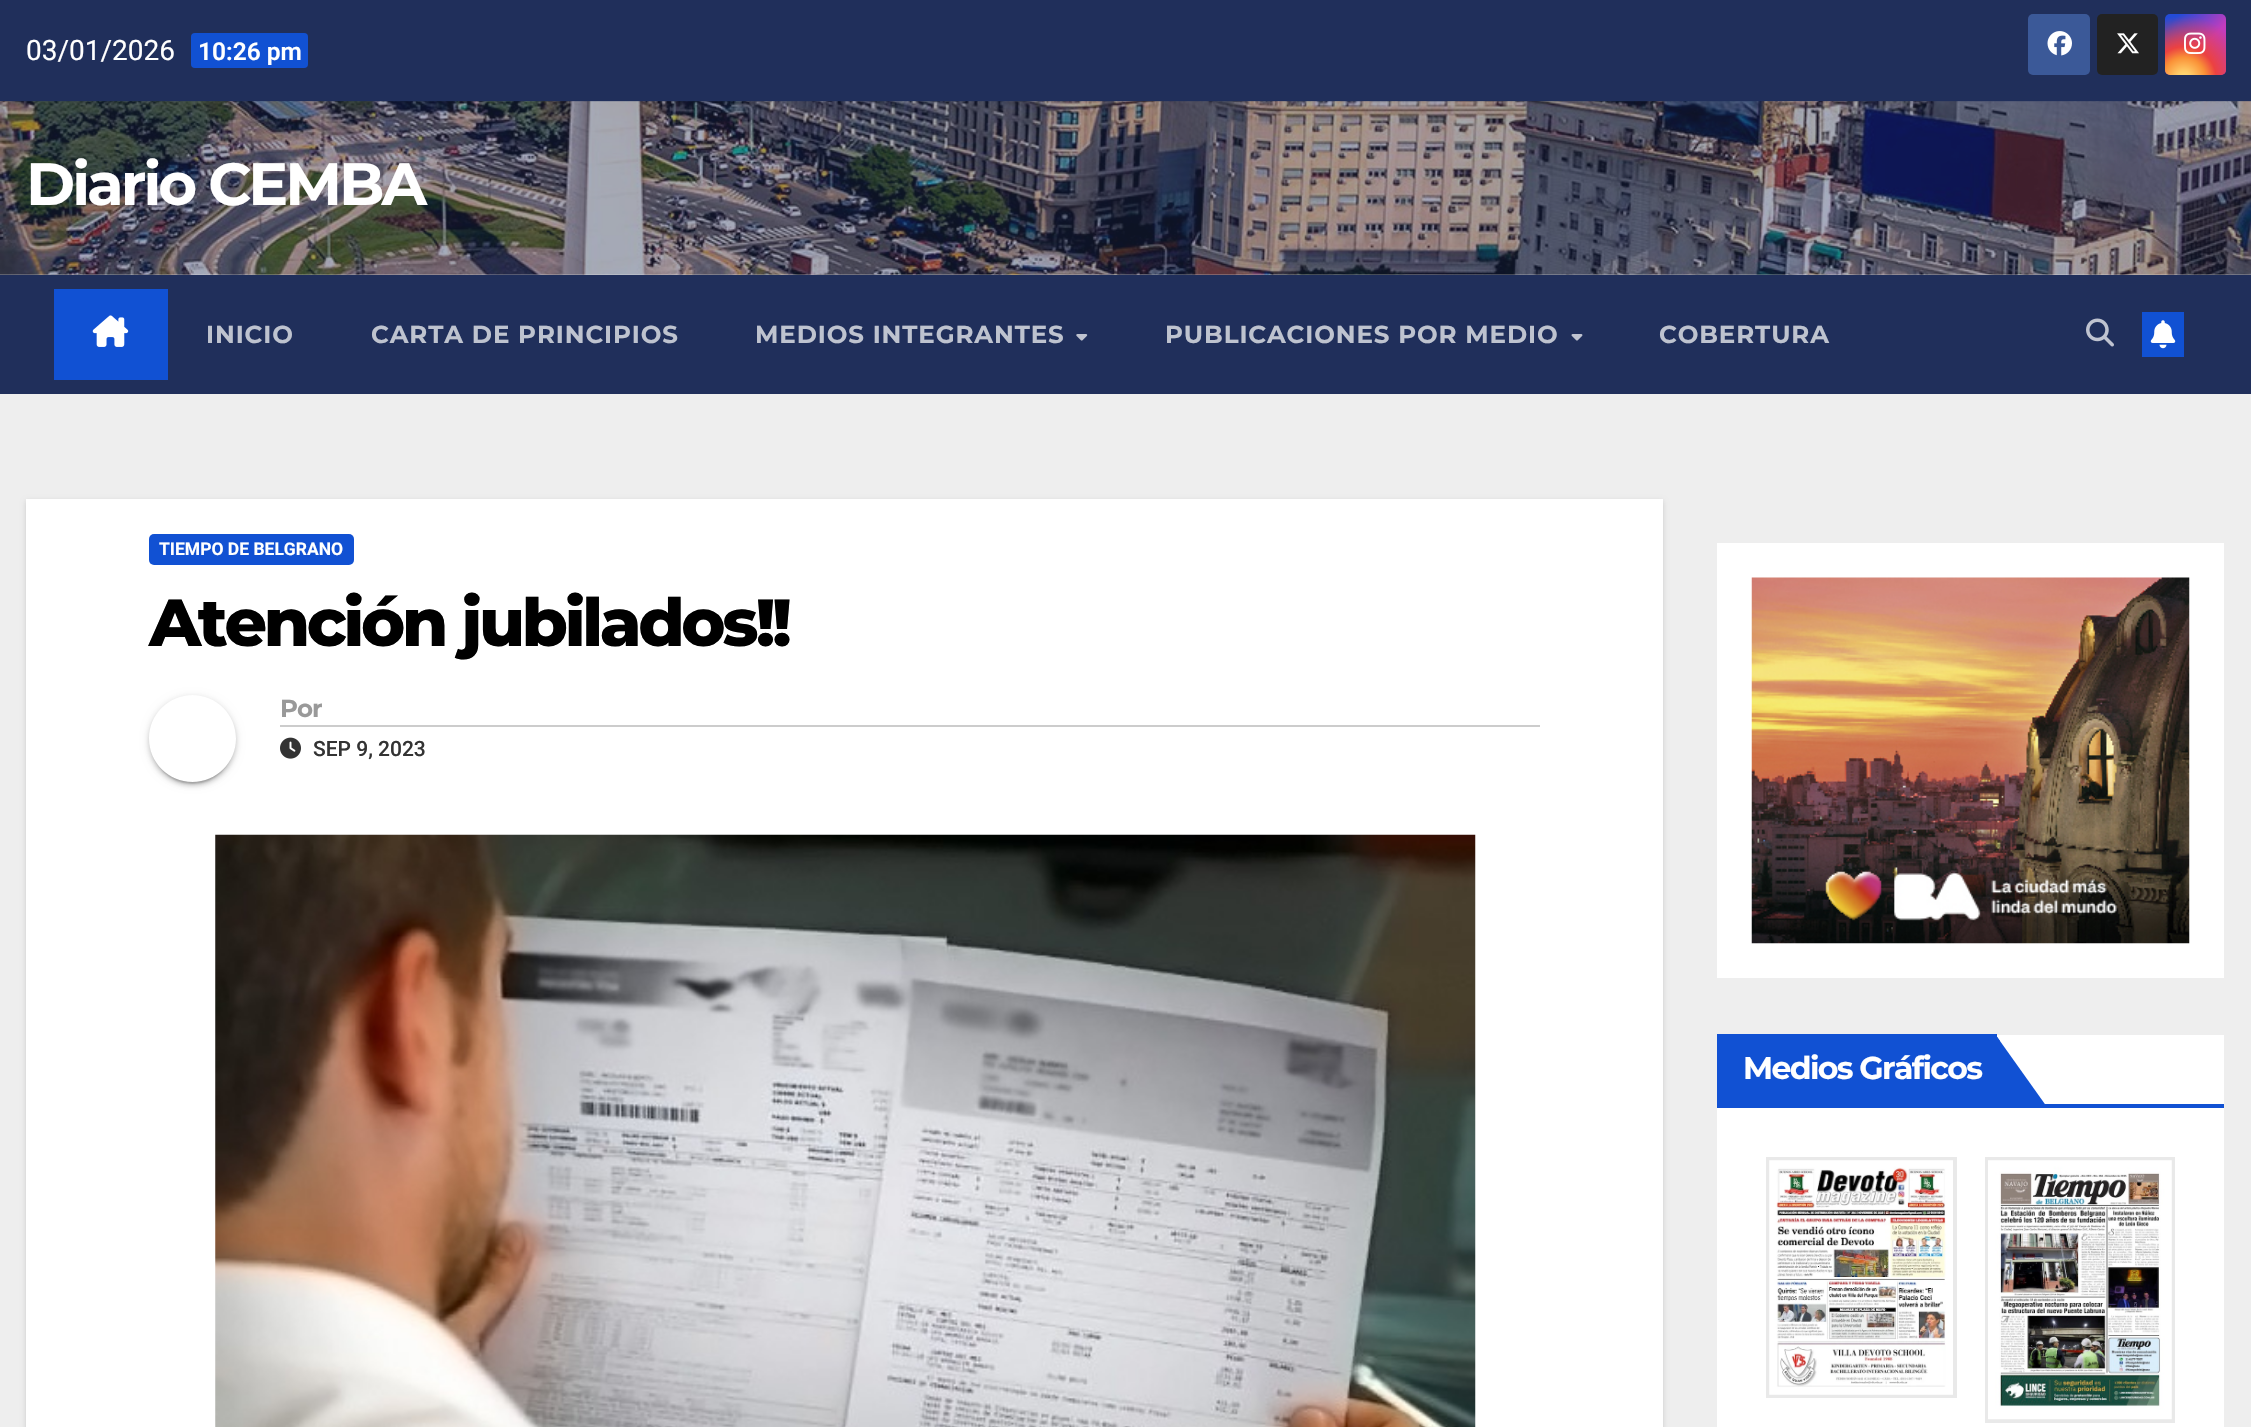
#include "include/core/SkBlurTypes.h"
#include "include/core/SkCanvas.h"
#include "include/core/SkData.h"
#include "include/core/SkFont.h"
#include "include/core/SkFontMgr.h"
#include "include/core/SkImage.h"
#include "include/core/SkMaskFilter.h"
#include "include/core/SkPaint.h"
#include "include/core/SkPathBuilder.h"
#include "include/core/SkTextBlob.h"
#include "include/effects/SkDashPathEffect.h"
#include "include/effects/SkGradientShader.h"
#include "include/utils/SkParsePath.h"

extern sk_sp<SkFontMgr> fontMgr;

static SkFont font(const char* family, int weight, float size, bool italic = false) {
    SkFontStyle style(weight, SkFontStyle::kNormal_Width,
        italic ? SkFontStyle::kItalic_Slant : SkFontStyle::kUpright_Slant);
    SkFont result(fontMgr->matchFamilyStyle(family, style), size);
    result.setSubpixel(true);
    return result;
}

static void drawLabel(SkCanvas* canvas, const char* s, float x, float y, const SkFont& font, SkColor color) {
    SkPaint ink(SkColor4f::FromColor(color));
    ink.setAntiAlias(true);
    canvas->drawString(s, x, y, font, ink);
}

static void drawTracked(SkCanvas* canvas, const char* s, float x, float y, const SkFont& font, const SkPaint& ink, float letter, float word) {
    std::vector<SkGlyphID> glyphs(font.countText(s, strlen(s), SkTextEncoding::kUTF8));
    std::vector<float> xs(glyphs.size());
    font.textToGlyphs(s, strlen(s), SkTextEncoding::kUTF8, glyphs);
    font.getXPos(glyphs, xs, x);
    float extra = 0;
    for (size_t i = 0; i < glyphs.size(); i++) {
        xs[i] += extra;
        extra += letter + word * (glyphs[i] == font.unicharToGlyph(' '));
    }
    canvas->drawTextBlob(SkTextBlob::MakeFromPosHGlyphs(glyphs, xs, y, font), 0, 0, ink);
}

static void fillRect(SkCanvas* canvas, float x, float y, float w, float h, SkColor color) {
    SkPaint ink(SkColor4f::FromColor(color));
    ink.setAntiAlias(true);
    canvas->drawRect(SkRect::MakeXYWH(x, y, w, h), ink);
}

static void fillRRect(SkCanvas* canvas, float x, float y, float w, float h, float radius, SkColor color) {
    SkPaint ink(SkColor4f::FromColor(color));
    ink.setAntiAlias(true);
    canvas->drawRoundRect(SkRect::MakeXYWH(x, y, w, h), radius, radius, ink);
}

static void drawPhoto(SkCanvas* canvas, const char* path, float x, float y, float w, float h) {
    auto image = SkImages::DeferredFromEncodedData(SkData::MakeFromFileName(path));
    canvas->drawImageRect(image, SkRect::MakeXYWH(x, y, w, h), SkSamplingOptions());
}

static SkPath parsePath(const char* data, bool evenOdd = false) {
    SkPath result = *SkParsePath::FromSVGString(data);
    if (evenOdd) result.setFillType(SkPathFillType::kEvenOdd);
    return result;
}

void draw(SkCanvas* canvas) {
    SkPaint paint;
    paint.setAntiAlias(true);
    canvas->clear(0xFFEEEEEE);
    fillRect(canvas, 0, 0, 2251, 102, 0xFF202F5B);
    SkFont font1 = font("Roboto", 400, 28);
    drawLabel(canvas, "03/01/2026", 26, 60, font1, 0xFFFFFFFF);
    fillRRect(canvas, 191, 33, 117, 35, 4, 0xFF1151D3);
    SkFont font2 = font("Roboto", 600, 24.5f);
    drawLabel(canvas, "10:26 pm", 198, 60, font2, 0xFFFFFFFF);
    fillRRect(canvas, 2028, 14, 62, 61, 5, 0xFF3B5998);
    drawPhoto(canvas, "assets/img1.png", 2047, 31, 25, 25);
    fillRRect(canvas, 2097, 14, 61, 61, 5, 0xFF222222);
    drawPhoto(canvas, "assets/img2.png", 2117, 33, 22, 21);
    {
        const SkColor colors[] = {0xFF234BD7, 0xFFC33CBE};
        const float stops[] = {0.12f, 0.58f};
        const SkPoint ends[] = {{2165, 14}, {2226, 75}};
        paint.setShader(SkGradientShader::MakeLinear(ends, colors, stops, 2, SkTileMode::kClamp));
        paint.setAlpha(255);
    }
    canvas->drawRoundRect(SkRect::MakeXYWH(2165, 14, 61, 61), 5, 5, paint);
    {
        const SkColor colors[] = {0xFFFFE17D, 0xFFFFCD69, 0xFFFA9137, 0xFFEB4141, 0x00EB4141};
        const float stops[] = {0, 0.1f, 0.28f, 0.42f, 0.82f};
        paint.setShader(SkGradientShader::MakeRadial({2184, 79}, 77, colors, stops, 5, SkTileMode::kClamp));
        paint.setAlpha(255);
    }
    canvas->drawRoundRect(SkRect::MakeXYWH(2165, 14, 61, 61), 5, 5, paint);
    drawPhoto(canvas, "assets/img3.png", 2184, 32, 22, 22);
    drawPhoto(canvas, "assets/img4.png", 0, 101, 2251, 174);
    SkFont font3 = font("Montserrat", 700, 59.5f);
    paint.setShader(nullptr);
    paint.setColor(0xFFFFFFFF);
    drawTracked(canvas, "Diario CEMBA", 26, 205, font3, paint, -3, 0);
    fillRect(canvas, 0, 275, 2251, 119, 0xFF202F5B);
    fillRect(canvas, 54, 289, 114, 91, 0xFF1151D3);
    drawPhoto(canvas, "assets/img5.png", 92, 315, 37, 32);
    SkFont font4 = font("Montserrat", 700, 24.5f);
    paint.setColor(0xFFBEC3CF);
    drawTracked(canvas, "INICIO", 206, 343, font4, paint, 0.9f, 0);
    drawTracked(canvas, "CARTA DE PRINCIPIOS", 371, 343, font4, paint, 0.9f, 0);
    drawTracked(canvas, "MEDIOS INTEGRANTES", 755, 343, font4, paint, 0.9f, 0);
    drawPhoto(canvas, "assets/img6.png", 1076, 334, 12, 7);
    drawTracked(canvas, "PUBLICACIONES POR MEDIO", 1165, 343, font4, paint, 0.9f, 0);
    drawPhoto(canvas, "assets/img7.png", 1571, 334, 12, 7);
    drawTracked(canvas, "COBERTURA", 1659, 343, font4, paint, 0.9f, 0);
    drawPhoto(canvas, "assets/img8.png", 2086, 318, 28, 29);
    fillRect(canvas, 2142, 312, 42, 45, 0xFF1151D3);
    drawPhoto(canvas, "assets/img9.png", 2150, 320, 26, 29);
    paint.setColor(0x26000000);
    paint.setMaskFilter(SkMaskFilter::MakeBlur(kNormal_SkBlurStyle, 2.5f));
    canvas->drawRect(SkRect::MakeXYWH(26, 501, 1637, 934), paint);
    paint.setMaskFilter(nullptr);
    fillRect(canvas, 26, 499, 1637, 928, 0xFFFFFFFF);
    fillRRect(canvas, 149, 534, 205, 31, 5, 0xFF1151D3);
    SkFont font5 = font("Roboto", 700, 17.5f);
    drawLabel(canvas, "TIEMPO DE BELGRANO", 159, 555, font5, 0xFFFFFFFF);
    SkFont font6 = font("Montserrat", 800, 66.5f);
    paint.setColor(0xFF000000);
    drawTracked(canvas, "Atención jubilados!!", 149, 646, font6, paint, -3.3f, 0);
    canvas->save();
    canvas->clipPath(parsePath("M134 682H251V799H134ZM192.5 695C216.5 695 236 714.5 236 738.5C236 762.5 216.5 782 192.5 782C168.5 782 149 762.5 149 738.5C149 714.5 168.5 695 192.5 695Z", true), true);
    paint.setColor(0x1F000000);
    paint.setMaskFilter(SkMaskFilter::MakeBlur(kNormal_SkBlurStyle, 4.5f));
    canvas->drawRoundRect(SkRect::MakeXYWH(149, 697, 87, 87), 43.5f, 43.5f, paint);
    paint.setMaskFilter(nullptr);
    canvas->restore();
    canvas->save();
    canvas->clipPath(parsePath("M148 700H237V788H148ZM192.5 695C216.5 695 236 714.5 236 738.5C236 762.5 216.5 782 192.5 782C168.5 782 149 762.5 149 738.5C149 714.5 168.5 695 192.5 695Z", true), true);
    paint.setColor(0x33000000);
    paint.setMaskFilter(SkMaskFilter::MakeBlur(kNormal_SkBlurStyle, 1));
    canvas->drawRoundRect(SkRect::MakeXYWH(152, 704, 81, 80), 40, 40, paint);
    paint.setMaskFilter(nullptr);
    canvas->restore();
    canvas->save();
    canvas->clipPath(parsePath("M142 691H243V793H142ZM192.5 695C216.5 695 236 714.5 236 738.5C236 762.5 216.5 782 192.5 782C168.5 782 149 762.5 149 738.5C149 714.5 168.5 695 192.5 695Z", true), true);
    paint.setColor(0x24000000);
    paint.setMaskFilter(SkMaskFilter::MakeBlur(kNormal_SkBlurStyle, 2));
    canvas->drawRoundRect(SkRect::MakeXYWH(149, 698, 87, 88), 43.5f, 43.5f, paint);
    paint.setMaskFilter(nullptr);
    canvas->restore();
    fillRect(canvas, 280, 725, 1260, 2, 0xFFCCCCCC);
    paint.setColor(0xFF999999);
    drawTracked(canvas, "Por", 280, 717, font4, paint, -1, 0);
    drawPhoto(canvas, "assets/img10.png", 280, 737, 21, 22);
    SkFont font7 = font("Roboto", 500, 21);
    drawLabel(canvas, "SEP 9, 2023", 313, 756, font7, 0xFF333333);
    drawPhoto(canvas, "assets/img11.png", 215, 834, 1261, 593);
    fillRect(canvas, 1717, 543, 507, 435, 0xFFFFFFFF);
    drawPhoto(canvas, "assets/img12.png", 1751, 577, 439, 367);
    fillRect(canvas, 1717, 1035, 507, 392, 0xFFFFFFFF);
    fillRect(canvas, 1717, 1104, 507, 4, 0xFF1151D3);
    fillRect(canvas, 1717, 1034, 280, 70, 0xFF1151D3);
    SkFont font8 = font("Montserrat", 700, 31.5f);
    paint.setColor(0xFFFFFFFF);
    drawTracked(canvas, "Medios Gráficos", 1743, 1079, font8, paint, -1.6f, 0);
    paint.setColor(0xFF1151D3);
    canvas->drawPath(parsePath("M1995 1034V1107H2047Z"), paint);
    canvas->drawPath(parsePath("M1995 1034V1107H1996L2000 1102V1041Z"), paint);
    paint.setStroke(true);
    paint.setStrokeWidth(4);
    paint.setColor(0xFFE9E9E9);
    canvas->drawRect(SkRect::MakeXYWH(1768, 1159, 187, 237), paint);
    drawPhoto(canvas, "assets/img13.png", 1769, 1160, 184, 235);
    canvas->drawRect(SkRect::MakeXYWH(1987, 1159, 186, 262), paint);
    drawPhoto(canvas, "assets/img14.png", 1988, 1160, 184, 260);
}
